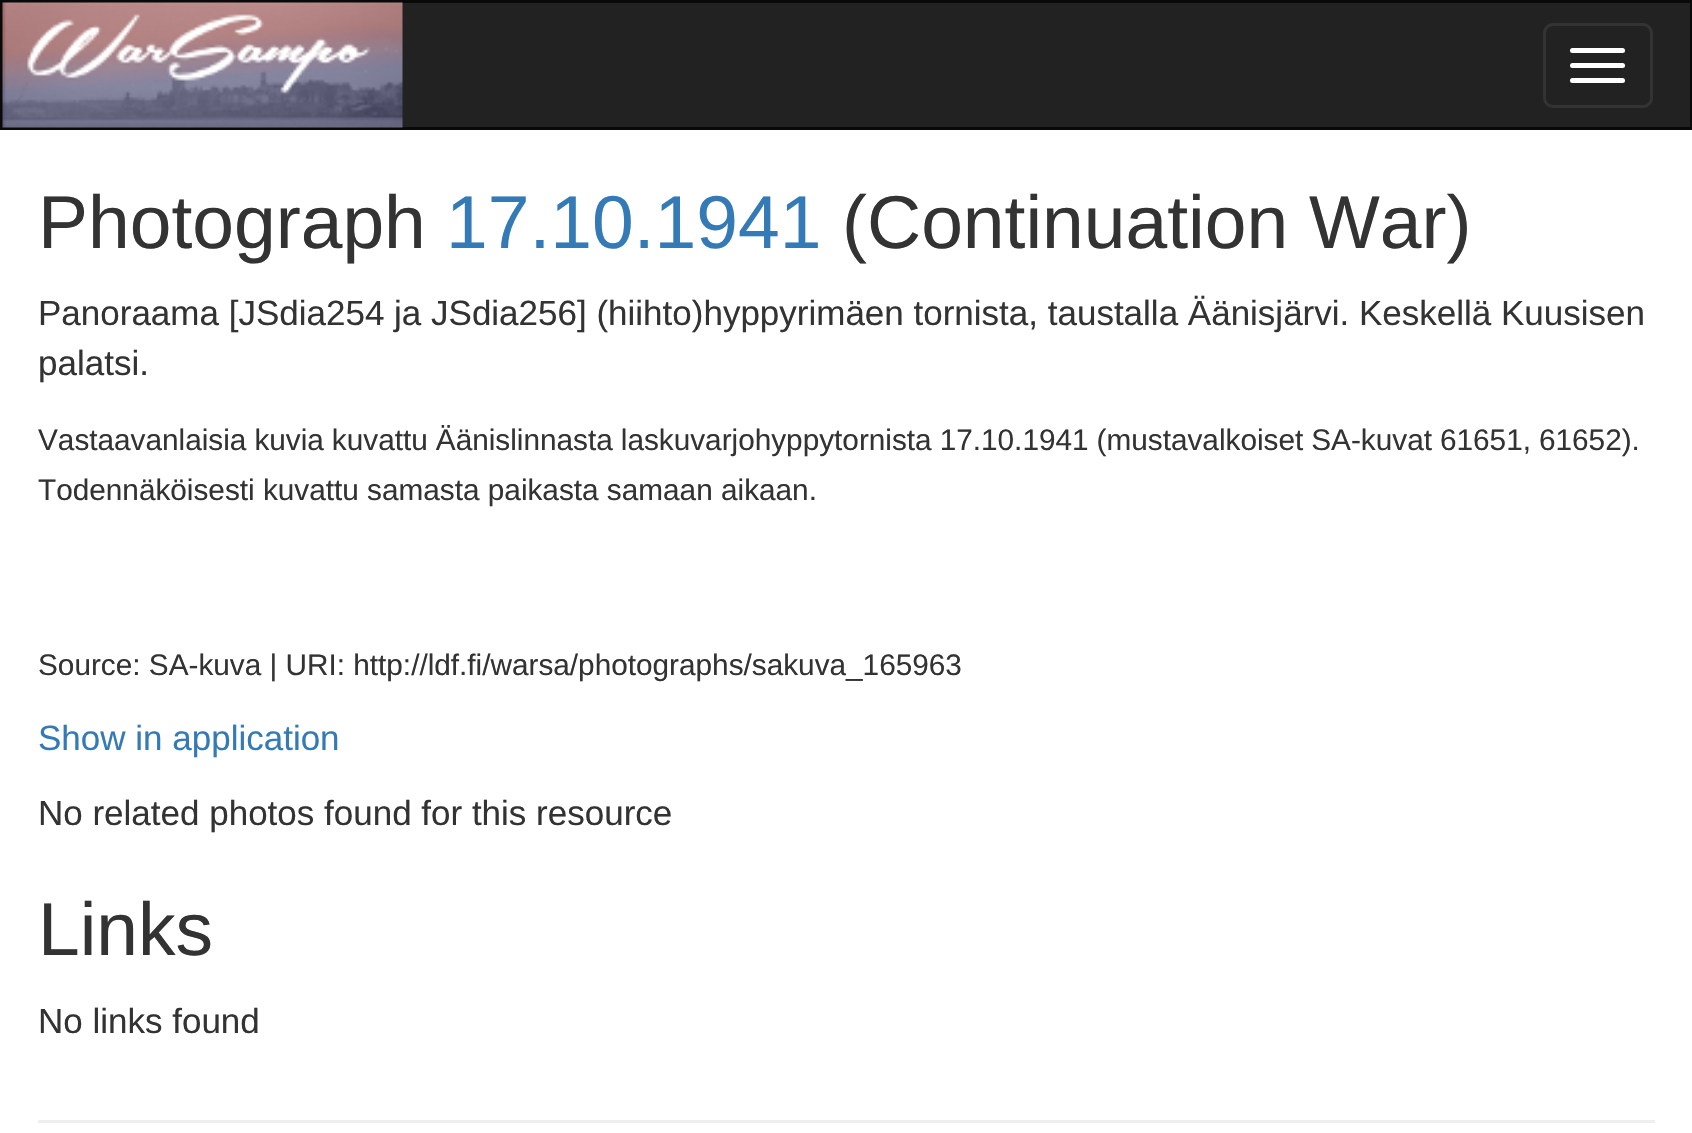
#include "include/core/SkBlurTypes.h"
#include "include/core/SkCanvas.h"
#include "include/core/SkData.h"
#include "include/core/SkFont.h"
#include "include/core/SkFontMgr.h"
#include "include/core/SkImage.h"
#include "include/core/SkMaskFilter.h"
#include "include/core/SkPaint.h"
#include "include/core/SkPathBuilder.h"
#include "include/core/SkTextBlob.h"
#include "include/effects/SkDashPathEffect.h"
#include "include/effects/SkGradientShader.h"
#include "include/utils/SkParsePath.h"

extern sk_sp<SkFontMgr> fontMgr;

static SkFont font(const char* family, int weight, float size, bool italic = false) {
    SkFontStyle style(weight, SkFontStyle::kNormal_Width,
        italic ? SkFontStyle::kItalic_Slant : SkFontStyle::kUpright_Slant);
    SkFont result(fontMgr->matchFamilyStyle(family, style), size);
    result.setSubpixel(true);
    return result;
}

static void drawLabel(SkCanvas* canvas, const char* s, float x, float y, const SkFont& font, SkColor color) {
    SkPaint ink(SkColor4f::FromColor(color));
    ink.setAntiAlias(true);
    canvas->drawString(s, x, y, font, ink);
}

static void drawTracked(SkCanvas* canvas, const char* s, float x, float y, const SkFont& font, const SkPaint& ink, float letter, float word) {
    std::vector<SkGlyphID> glyphs(font.countText(s, strlen(s), SkTextEncoding::kUTF8));
    std::vector<float> xs(glyphs.size());
    font.textToGlyphs(s, strlen(s), SkTextEncoding::kUTF8, glyphs);
    font.getXPos(glyphs, xs, x);
    float extra = 0;
    for (size_t i = 0; i < glyphs.size(); i++) {
        xs[i] += extra;
        extra += letter + word * (glyphs[i] == font.unicharToGlyph(' '));
    }
    canvas->drawTextBlob(SkTextBlob::MakeFromPosHGlyphs(glyphs, xs, y, font), 0, 0, ink);
}

static void fillRect(SkCanvas* canvas, float x, float y, float w, float h, SkColor color) {
    SkPaint ink(SkColor4f::FromColor(color));
    ink.setAntiAlias(true);
    canvas->drawRect(SkRect::MakeXYWH(x, y, w, h), ink);
}

static void fillRRect(SkCanvas* canvas, float x, float y, float w, float h, float radius, SkColor color) {
    SkPaint ink(SkColor4f::FromColor(color));
    ink.setAntiAlias(true);
    canvas->drawRoundRect(SkRect::MakeXYWH(x, y, w, h), radius, radius, ink);
}

static void drawPhoto(SkCanvas* canvas, const char* path, float x, float y, float w, float h) {
    auto image = SkImages::DeferredFromEncodedData(SkData::MakeFromFileName(path));
    canvas->drawImageRect(image, SkRect::MakeXYWH(x, y, w, h), SkSamplingOptions());
}

void draw(SkCanvas* canvas) {
    SkPaint paint;
    paint.setAntiAlias(true);
    canvas->clear(0xFFFFFFFF);
    paint.setColor(0xFF222222);
    canvas->drawRect(SkRect::MakeXYWH(1.5f, 1.5f, 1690, 127), paint);
    paint.setStroke(true);
    paint.setStrokeWidth(3);
    paint.setColor(0xFF090909);
    canvas->drawRect(SkRect::MakeXYWH(1.5f, 1.5f, 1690, 127), paint);
    drawPhoto(canvas, "assets/img1.png", 2, 2, 401, 126);
    paint.setColor(0xFF333333);
    canvas->drawRoundRect(SkRect::MakeXYWH(1544.5f, 24.5f, 107, 82), 8.5f, 8.5f, paint);
    fillRRect(canvas, 1570, 48, 55, 5, 2.5f, 0xFFFFFFFF);
    fillRRect(canvas, 1570, 63, 55, 5, 2.5f, 0xFFFFFFFF);
    fillRRect(canvas, 1570, 78, 55, 5, 2.5f, 0xFFFFFFFF);
    SkFont font1 = font("Liberation Sans", 400, 75);
    drawLabel(canvas, "Photograph", 38, 248, font1, 0xFF333333);
    drawLabel(canvas, "17.10.1941", 446, 248, font1, 0xFF337AB7);
    drawLabel(canvas, "(Continuation War)", 842, 248, font1, 0xFF333333);
    SkFont font2 = font("Liberation Sans", 400, 35);
    drawLabel(canvas, "Panoraama [JSdia254 ja JSdia256] (hiihto)hyppyrimäen tornista, taustalla Äänisjärvi. Keskellä Kuusisen", 38, 325, font2, 0xFF333333);
    drawLabel(canvas, "palatsi.", 38, 375, font2, 0xFF333333);
    SkFont font3 = font("Liberation Sans", 400, 29.75f);
    paint.setStroke(false);
    drawTracked(canvas, "Vastaavanlaisia kuvia kuvattu Äänislinnasta laskuvarjohyppytornista 17.10.1941 (mustavalkoiset SA-kuvat 61651, 61652).", 38, 450, font3, paint, 0, -0.25f);
    drawLabel(canvas, "Todennäköisesti kuvattu samasta paikasta samaan aikaan.", 38, 500, font3, 0xFF333333);
    drawLabel(canvas, "Source: SA-kuva | URI: http://ldf.fi/warsa/photographs/sakuva_165963", 38, 675, font3, 0xFF333333);
    drawLabel(canvas, "Show in application", 38, 750, font2, 0xFF337AB7);
    drawLabel(canvas, "No related photos found for this resource", 38, 825, font2, 0xFF333333);
    drawLabel(canvas, "Links", 38, 955, font1, 0xFF333333);
    drawLabel(canvas, "No links found", 38, 1033, font2, 0xFF333333);
    fillRect(canvas, 38, 1120, 1617, 3, 0xFFEEEEEE);
}
